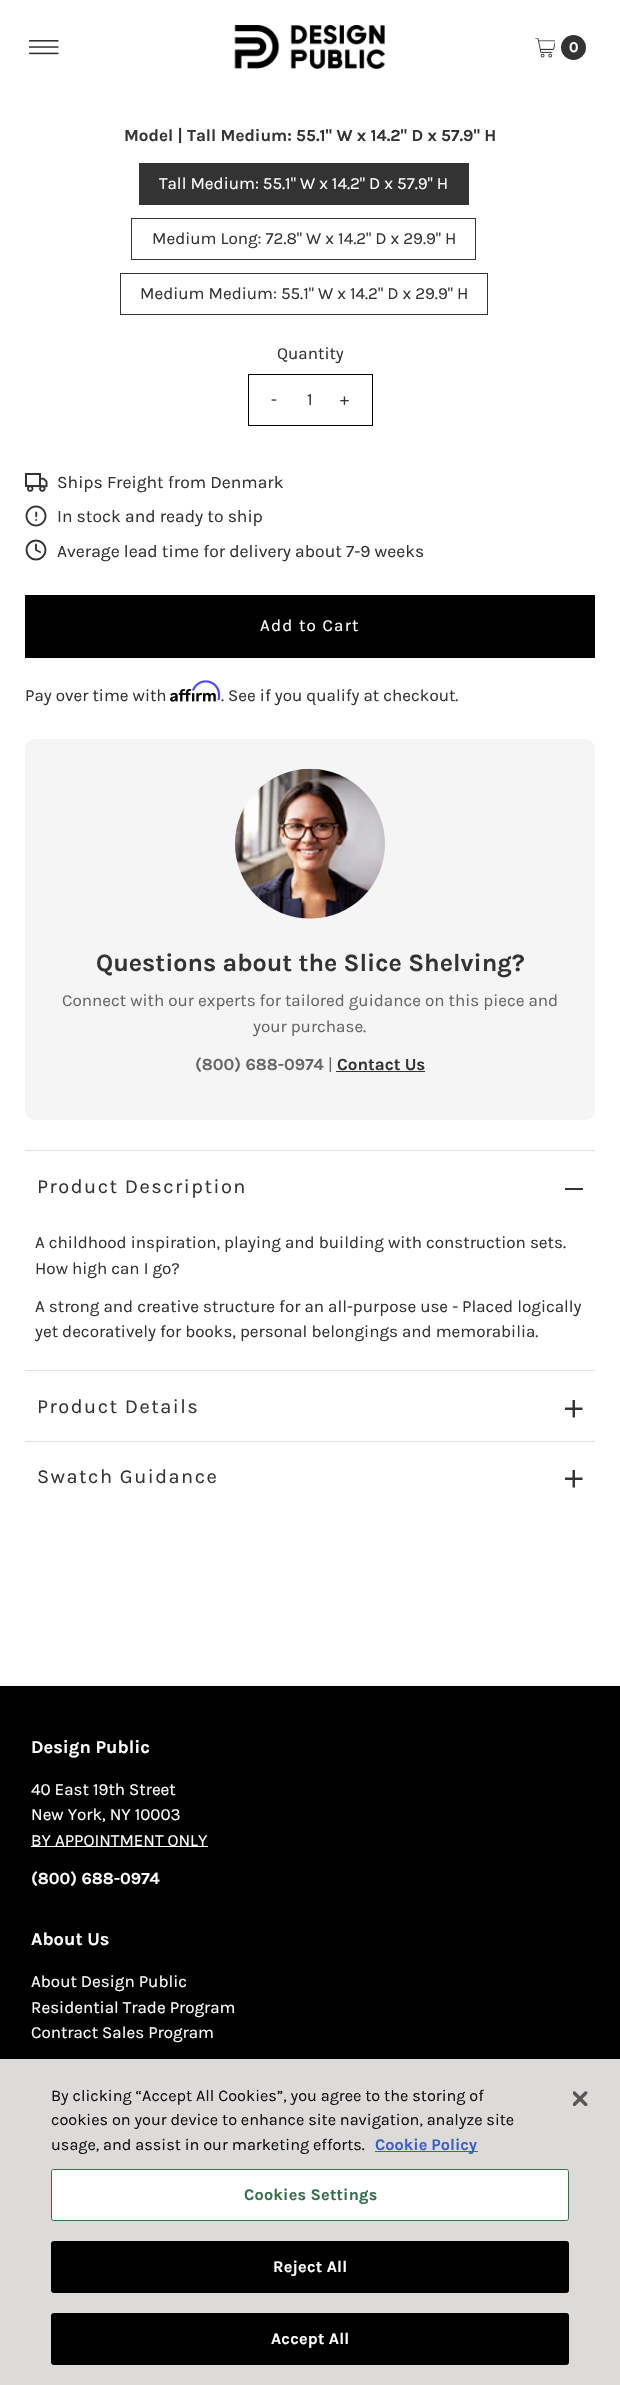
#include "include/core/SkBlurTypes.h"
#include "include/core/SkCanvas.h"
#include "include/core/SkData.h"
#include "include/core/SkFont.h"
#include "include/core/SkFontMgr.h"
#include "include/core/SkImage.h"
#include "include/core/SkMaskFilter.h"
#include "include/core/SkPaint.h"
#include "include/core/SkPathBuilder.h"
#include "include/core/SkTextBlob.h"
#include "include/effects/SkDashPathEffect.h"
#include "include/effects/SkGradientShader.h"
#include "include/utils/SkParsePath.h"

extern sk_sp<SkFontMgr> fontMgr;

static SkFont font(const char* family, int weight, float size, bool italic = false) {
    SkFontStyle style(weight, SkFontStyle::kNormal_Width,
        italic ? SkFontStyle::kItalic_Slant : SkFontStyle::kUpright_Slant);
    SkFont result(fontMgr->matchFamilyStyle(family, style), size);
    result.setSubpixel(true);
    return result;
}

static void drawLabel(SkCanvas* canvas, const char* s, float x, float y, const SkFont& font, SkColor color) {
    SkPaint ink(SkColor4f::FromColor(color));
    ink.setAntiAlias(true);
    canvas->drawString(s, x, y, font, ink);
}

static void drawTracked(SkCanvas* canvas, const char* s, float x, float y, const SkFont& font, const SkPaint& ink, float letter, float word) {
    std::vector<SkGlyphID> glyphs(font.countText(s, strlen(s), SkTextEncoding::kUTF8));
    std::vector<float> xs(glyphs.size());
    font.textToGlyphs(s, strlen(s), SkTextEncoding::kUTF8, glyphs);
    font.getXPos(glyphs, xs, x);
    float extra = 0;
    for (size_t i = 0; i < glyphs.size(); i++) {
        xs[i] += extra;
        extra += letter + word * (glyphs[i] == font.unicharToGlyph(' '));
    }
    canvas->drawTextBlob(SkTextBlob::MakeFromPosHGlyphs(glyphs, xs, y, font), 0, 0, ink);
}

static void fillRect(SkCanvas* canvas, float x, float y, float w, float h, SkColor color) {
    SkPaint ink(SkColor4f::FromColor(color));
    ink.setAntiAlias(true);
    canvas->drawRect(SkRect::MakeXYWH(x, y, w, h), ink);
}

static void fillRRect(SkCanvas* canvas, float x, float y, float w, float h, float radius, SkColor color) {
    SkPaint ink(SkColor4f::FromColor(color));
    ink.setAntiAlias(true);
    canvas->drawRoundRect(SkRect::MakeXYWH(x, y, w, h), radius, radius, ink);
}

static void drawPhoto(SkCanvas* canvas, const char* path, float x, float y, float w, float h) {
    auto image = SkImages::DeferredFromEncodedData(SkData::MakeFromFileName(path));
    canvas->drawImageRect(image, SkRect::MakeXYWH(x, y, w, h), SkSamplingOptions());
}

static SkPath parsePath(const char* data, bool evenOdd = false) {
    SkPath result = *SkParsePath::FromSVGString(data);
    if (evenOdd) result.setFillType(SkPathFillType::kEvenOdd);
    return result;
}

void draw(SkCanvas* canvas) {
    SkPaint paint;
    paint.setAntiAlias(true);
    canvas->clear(0xFFFFFFFF);
    drawPhoto(canvas, "assets/img1.png", 29, 40, 30, 15);
    drawPhoto(canvas, "assets/img2.png", 234, 25, 151, 44);
    drawPhoto(canvas, "assets/img3.png", 535, 38, 20, 20);
    paint.setColor(0xFF333333);
    canvas->drawCircle(573.5f, 47.5f, 12.5f, paint);
    SkFont font1 = font("Karla", 700, 15);
    drawLabel(canvas, "0", 569, 52, font1, 0xFFFFFFFF);
    SkFont font2 = font("Karla", 700, 17);
    drawLabel(canvas, "Model | Tall Medium: 55.1\" W x 14.2\" D x 57.9\" H", 124, 141, font2, 0xFF333333);
    fillRect(canvas, 139, 163, 330, 42, 0xFF333333);
    SkFont font3 = font("Karla", 400, 17);
    drawLabel(canvas, "Tall Medium: 55.1\" W x 14.2\" D x 57.9\" H", 159, 189, font3, 0xFFFFFFFF);
    paint.setStroke(true);
    paint.setStrokeWidth(1);
    canvas->drawRect(SkRect::MakeXYWH(131.5f, 218.5f, 344, 41), paint);
    drawLabel(canvas, "Medium Long: 72.8\" W x 14.2\" D x 29.9\" H", 152, 244, font3, 0xFF333333);
    canvas->drawRect(SkRect::MakeXYWH(120.5f, 273.5f, 367, 41), paint);
    drawLabel(canvas, "Medium Medium: 55.1\" W x 14.2\" D x 29.9\" H", 140, 299, font3, 0xFF333333);
    drawLabel(canvas, "Quantity", 277, 359, font3, 0xFF333333);
    paint.setColor(0xFF000000);
    canvas->drawRect(SkRect::MakeXYWH(248.5f, 374.5f, 124, 51), paint);
    paint.setStroke(false);
    paint.setColor(0xFF333333);
    drawTracked(canvas, "-", 271, 405, font3, paint, 1.25f, 0);
    drawLabel(canvas, "1", 307, 405, font3, 0xFF333333);
    drawTracked(canvas, "+", 340, 405, font3, paint, 1.25f, 0);
    drawPhoto(canvas, "assets/img4.png", 25, 473, 23, 19);
    SkFont font4 = font("Karla", 400, 17.5f);
    drawLabel(canvas, "Ships Freight from Denmark", 57, 488, font4, 0xFF333333);
    drawPhoto(canvas, "assets/img5.png", 25, 505, 22, 22);
    drawLabel(canvas, "In stock and ready to ship", 57, 522, font4, 0xFF333333);
    paint.setStroke(true);
    paint.setStrokeWidth(1.9f);
    canvas->drawCircle(36, 550, 9.5f, paint);
    paint.setStrokeCap(SkPaint::kRound_Cap);
    paint.setStrokeJoin(SkPaint::kRound_Join);
    canvas->drawPath(parsePath("M36 544.5V550L40 552"), paint);
    drawLabel(canvas, "Average lead time for delivery about 7-9 weeks", 57, 557, font4, 0xFF333333);
    fillRect(canvas, 25, 595, 570, 63, 0xFF000000);
    paint.setStroke(false);
    paint.setColor(0xFFFFFFFF);
    drawTracked(canvas, "Add to Cart", 260, 631, font3, paint, 1.25f, 0);
    drawLabel(canvas, "Pay over time with", 25, 701, font3, 0xFF333333);
    drawPhoto(canvas, "assets/img7.png", 170, 689, 46, 13);
    drawPhoto(canvas, "assets/img6.png", 192, 680, 29, 21);
    drawLabel(canvas, ". See if you qualify at checkout.", 221, 701, font3, 0xFF333333);
    fillRRect(canvas, 25, 739, 570, 381, 10, 0xFFF5F5F5);
    drawPhoto(canvas, "assets/img8.png", 235, 768, 150, 151);
    SkFont font5 = font("Karla", 700, 25);
    drawLabel(canvas, "Questions about the Slice Shelving?", 96, 971, font5, 0xFF333333);
    drawLabel(canvas, "Connect with our experts for tailored guidance on this piece and", 62, 1006, font3, 0xFF666666);
    drawLabel(canvas, "your purchase.", 253, 1032, font3, 0xFF666666);
    drawLabel(canvas, "(800) 688-0974", 195, 1070, font2, 0xFF666666);
    drawLabel(canvas, "|", 328, 1070, font3, 0xFF666666);
    drawLabel(canvas, "Contact Us", 337, 1070, font2, 0xFF333333);
    fillRect(canvas, 336, 1071, 89, 1, 0xFF333333);
    fillRect(canvas, 25, 1150, 570, 1, 0xFFDFDFDF);
    SkFont font6 = font("Karla", 400, 20);
    paint.setColor(0xFF333333);
    drawTracked(canvas, "Product Description", 37, 1193, font6, paint, 1.5f, 0);
    fillRect(canvas, 565, 1188, 18, 2, 0xFF333333);
    drawLabel(canvas, "A childhood inspiration, playing and building with construction sets.", 35, 1248, font3, 0xFF333333);
    drawLabel(canvas, "How high can I go?", 35, 1274, font3, 0xFF333333);
    drawLabel(canvas, "A strong and creative structure for an all-purpose use - Placed logically", 35, 1312, font3, 0xFF333333);
    drawLabel(canvas, "yet decoratively for books, personal belongings and memorabilia.", 35, 1337, font3, 0xFF333333);
    fillRect(canvas, 25, 1370, 570, 1, 0xFFDFDFDF);
    drawTracked(canvas, "Product Details", 37, 1413, font6, paint, 1.5f, 0);
    drawPhoto(canvas, "assets/img9.png", 565, 1400, 18, 18);
    fillRect(canvas, 25, 1441, 570, 1, 0xFFDFDFDF);
    drawTracked(canvas, "Swatch Guidance", 37, 1483, font6, paint, 1.5f, 0);
    drawPhoto(canvas, "assets/img9.png", 565, 1470, 18, 18);
    fillRect(canvas, 0, 1686, 620, 373, 0xFF000000);
    SkFont font7 = font("Karla", 700, 18.25f);
    drawLabel(canvas, "Design Public", 31, 1753, font7, 0xFFFFFFFF);
    drawLabel(canvas, "40 East 19th Street", 31, 1795, font3, 0xFFFFFFFF);
    drawLabel(canvas, "New York, NY 10003", 31, 1820, font3, 0xFFFFFFFF);
    fillRect(canvas, 31, 1846, 177, 1, 0xFFFFFFFF);
    drawLabel(canvas, "BY APPOINTMENT ONLY", 31, 1846, font3, 0xFFFFFFFF);
    drawLabel(canvas, "(800) 688-0974", 31, 1884, font2, 0xFFFFFFFF);
    drawLabel(canvas, "About Us", 31, 1945, font7, 0xFFFFFFFF);
    drawLabel(canvas, "About Design Public", 31, 1987, font3, 0xFFFFFFFF);
    drawLabel(canvas, "Residential Trade Program", 31, 2013, font3, 0xFFFFFFFF);
    drawLabel(canvas, "Contract Sales Program", 31, 2038, font3, 0xFFFFFFFF);
    paint.setColor(0x33000000);
    paint.setMaskFilter(SkMaskFilter::MakeBlur(kNormal_SkBlurStyle, 11));
    canvas->drawRect(SkRect::MakeXYWH(0, 2059, 620, 326), paint);
    paint.setMaskFilter(nullptr);
    fillRect(canvas, 0, 2059, 620, 326, 0xFFDDDADA);
    SkFont font8 = font("Karla", 400, 16.25f);
    drawLabel(canvas, "By clicking “Accept All Cookies”, you agree to the storing of", 51, 2101, font8, 0xFF121111);
    drawLabel(canvas, "cookies on your device to enhance site navigation, analyze site", 51, 2125, font8, 0xFF121111);
    drawLabel(canvas, "usage, and assist in our marketing efforts.", 51, 2150, font8, 0xFF121111);
    fillRect(canvas, 375, 2151, 103, 1, 0xFF3860BE);
    SkFont font9 = font("Karla", 700, 16.25f);
    drawLabel(canvas, "Cookie Policy", 375, 2150, font9, 0xFF3860BE);
    paint.setColor(0xFFFFFFFF);
    canvas->drawRoundRect(SkRect::MakeXYWH(51.5f, 2169.5f, 517, 51), 2, 2, paint);
    paint.setStroke(true);
    paint.setStrokeWidth(1);
    paint.setStrokeCap(SkPaint::kButt_Cap);
    paint.setStrokeJoin(SkPaint::kMiter_Join);
    paint.setColor(0xFF346E4A);
    canvas->drawRoundRect(SkRect::MakeXYWH(51.5f, 2169.5f, 517, 51), 2, 2, paint);
    paint.setStroke(false);
    drawTracked(canvas, "Cookies Settings", 244, 2200, font9, paint, 0.2f, 0);
    paint.setColor(0xFF000000);
    canvas->drawRoundRect(SkRect::MakeXYWH(51.5f, 2241.5f, 517, 51), 2, 2, paint);
    paint.setStroke(true);
    canvas->drawRoundRect(SkRect::MakeXYWH(51.5f, 2241.5f, 517, 51), 2, 2, paint);
    paint.setStroke(false);
    paint.setColor(0xFFFFFFFF);
    drawTracked(canvas, "Reject All", 273, 2272, font9, paint, 0.2f, 0);
    paint.setColor(0xFF000000);
    canvas->drawRoundRect(SkRect::MakeXYWH(51.5f, 2313.5f, 517, 51), 2, 2, paint);
    paint.setStroke(true);
    canvas->drawRoundRect(SkRect::MakeXYWH(51.5f, 2313.5f, 517, 51), 2, 2, paint);
    paint.setStroke(false);
    paint.setColor(0xFFFFFFFF);
    drawTracked(canvas, "Accept All", 271, 2344, font9, paint, 0.2f, 0);
    drawPhoto(canvas, "assets/img10.png", 573, 2091, 15, 15);
}
